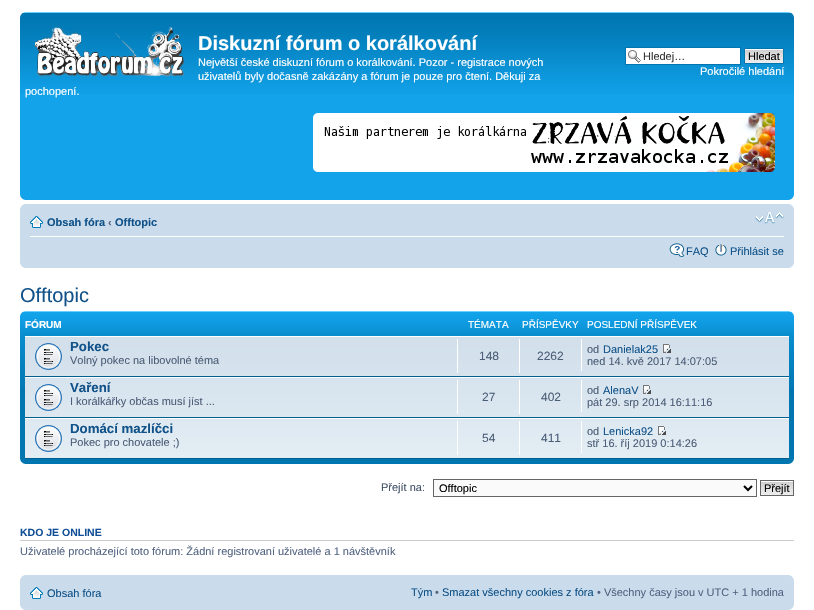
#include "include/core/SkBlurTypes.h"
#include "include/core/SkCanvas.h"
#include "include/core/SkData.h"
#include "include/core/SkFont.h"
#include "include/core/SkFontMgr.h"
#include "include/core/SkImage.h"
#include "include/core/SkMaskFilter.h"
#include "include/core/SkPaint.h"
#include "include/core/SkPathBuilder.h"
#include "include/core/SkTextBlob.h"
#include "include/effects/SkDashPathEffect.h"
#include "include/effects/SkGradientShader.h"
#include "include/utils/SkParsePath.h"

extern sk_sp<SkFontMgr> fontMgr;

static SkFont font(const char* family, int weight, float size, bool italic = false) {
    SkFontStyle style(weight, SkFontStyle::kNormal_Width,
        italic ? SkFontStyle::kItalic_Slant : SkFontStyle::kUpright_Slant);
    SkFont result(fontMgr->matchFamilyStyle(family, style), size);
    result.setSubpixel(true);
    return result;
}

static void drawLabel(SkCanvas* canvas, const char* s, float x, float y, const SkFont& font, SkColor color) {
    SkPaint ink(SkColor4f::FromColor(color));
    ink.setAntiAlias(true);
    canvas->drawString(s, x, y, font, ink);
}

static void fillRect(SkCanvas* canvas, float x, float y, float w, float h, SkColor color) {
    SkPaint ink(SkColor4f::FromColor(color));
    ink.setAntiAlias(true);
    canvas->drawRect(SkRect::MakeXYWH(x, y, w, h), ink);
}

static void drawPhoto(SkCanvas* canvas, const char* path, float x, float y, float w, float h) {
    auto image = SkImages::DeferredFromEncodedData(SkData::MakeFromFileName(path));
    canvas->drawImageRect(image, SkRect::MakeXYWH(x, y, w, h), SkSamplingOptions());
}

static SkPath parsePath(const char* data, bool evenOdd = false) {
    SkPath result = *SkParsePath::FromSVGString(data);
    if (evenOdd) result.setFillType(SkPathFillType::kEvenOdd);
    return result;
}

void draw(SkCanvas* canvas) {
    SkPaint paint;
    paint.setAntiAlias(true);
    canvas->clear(0xFFFFFFFF);
    fillRect(canvas, 20, 94, 774, 106, 0xFF12A3EB);
    drawPhoto(canvas, "assets/img1.png", 20, 12, 774, 82);
    drawPhoto(canvas, "assets/img2.png", 20, 12, 5, 5);
    drawPhoto(canvas, "assets/img3.png", 789, 12, 5, 5);
    drawPhoto(canvas, "assets/img4.png", 35, 27, 150, 51);
    SkFont font1 = font("Liberation Sans", 700, 20);
    drawLabel(canvas, "Diskuzní fórum o korálkování", 198, 50, font1, 0xFFFFFFFF);
    SkFont font2 = font("Liberation Sans", 400, 11);
    drawLabel(canvas, "Největší české diskuzní fórum o korálkování. Pozor - registrace nových", 198, 66, font2, 0xFFFFFFFF);
    drawLabel(canvas, "uživatelů byly dočasně zakázány a fórum je pouze pro čtení. Děkuji za", 198, 80, font2, 0xFFFFFFFF);
    drawLabel(canvas, "pochopení.", 25, 95, font2, 0xFFFFFFFF);
    fillRect(canvas, 626, 48, 114, 16, 0xFFFFFFFF);
    drawPhoto(canvas, "assets/img5.png", 628, 50, 13, 13);
    paint.setStroke(true);
    paint.setStrokeWidth(1);
    paint.setColor(0xFF0075B0);
    canvas->drawRect(SkRect::MakeXYWH(625.5f, 47.5f, 115, 17), paint);
    drawLabel(canvas, "Hledej…", 643, 60, font2, 0xFF333333);
    drawPhoto(canvas, "assets/img6.png", 745, 49, 38, 14);
    canvas->drawRect(SkRect::MakeXYWH(744.5f, 48.5f, 39, 15), paint);
    drawLabel(canvas, "Hledat", 748, 60, font2, 0xFF000000);
    drawLabel(canvas, "Pokročilé hledání", 700, 75, font2, 0xFFFFFFFF);
    drawPhoto(canvas, "assets/img7.png", 313, 113, 462, 59);
    drawPhoto(canvas, "assets/img8.png", 20, 195, 5, 5);
    drawPhoto(canvas, "assets/img9.png", 789, 195, 5, 5);
    fillRect(canvas, 20, 204, 774, 64, 0xFFCADCEB);
    drawPhoto(canvas, "assets/img10.png", 20, 204, 5, 5);
    drawPhoto(canvas, "assets/img11.png", 789, 204, 5, 5);
    fillRect(canvas, 30, 236, 754, 1, 0xFFFFFFFF);
    drawPhoto(canvas, "assets/img12.png", 30, 216, 13, 12);
    SkFont font3 = font("Liberation Sans", 700, 11);
    drawLabel(canvas, "Obsah fóra", 47, 226, font3, 0xFF105289);
    drawLabel(canvas, "‹", 108, 226, font3, 0xFF536482);
    drawLabel(canvas, "Offtopic", 115, 226, font3, 0xFF105289);
    drawPhoto(canvas, "assets/img13.png", 755, 212, 29, 12);
    drawPhoto(canvas, "assets/img14.png", 669, 243, 16, 14);
    drawLabel(canvas, "FAQ", 686, 255, font2, 0xFF105289);
    drawPhoto(canvas, "assets/img15.png", 715, 244, 12, 12);
    drawLabel(canvas, "Přihlásit se", 730, 255, font2, 0xFF105289);
    drawPhoto(canvas, "assets/img16.png", 20, 263, 5, 5);
    drawPhoto(canvas, "assets/img17.png", 789, 263, 5, 5);
    SkFont font4 = font("Liberation Sans", 400, 20);
    drawLabel(canvas, "Offtopic", 20, 302, font4, 0xFF105289);
    fillRect(canvas, 20, 388, 774, 76, 0xFF0076B1);
    drawPhoto(canvas, "assets/img18.png", 20, 311, 774, 77);
    drawPhoto(canvas, "assets/img19.png", 20, 311, 5, 5);
    drawPhoto(canvas, "assets/img20.png", 789, 311, 5, 5);
    SkFont font5 = font("Liberation Sans", 700, 10);
    drawLabel(canvas, "FÓRUM", 25, 328, font5, 0xFFFFFFFF);
    SkFont font6 = font("Liberation Sans", 400, 10);
    drawLabel(canvas, "TÉMATA", 468, 328, font6, 0xFFFFFFFF);
    drawLabel(canvas, "PŘÍSPĚVKY", 522, 328, font6, 0xFFFFFFFF);
    drawLabel(canvas, "POSLEDNÍ PŘÍSPĚVEK", 587, 328, font6, 0xFFFFFFFF);
    drawPhoto(canvas, "assets/img21.png", 25, 337, 764, 121);
    fillRect(canvas, 25, 336, 764, 1, 0xFFFFFFFF);
    fillRect(canvas, 25, 376, 764, 1, 0xFF00608F);
    drawPhoto(canvas, "assets/img22.png", 35, 343, 27, 27);
    SkFont font7 = font("Liberation Sans", 700, 13.25f);
    drawLabel(canvas, "Pokec", 70, 351, font7, 0xFF105289);
    drawLabel(canvas, "Volný pokec na libovolné téma", 70, 364, font2, 0xFF4C5D77);
    fillRect(canvas, 457, 339, 1, 34, 0xFFFFFFFF);
    SkFont font8 = font("Liberation Sans", 400, 12);
    drawLabel(canvas, "148", 479, 360, font8, 0xFF4C5D77);
    fillRect(canvas, 519, 339, 1, 34, 0xFFFFFFFF);
    drawLabel(canvas, "2262", 537, 360, font8, 0xFF4C5D77);
    fillRect(canvas, 581, 339, 1, 32, 0xFFFFFFFF);
    drawLabel(canvas, "od", 587, 353, font2, 0xFF4C5D77);
    drawLabel(canvas, "Danielak25", 603, 353, font2, 0xFF105289);
    drawPhoto(canvas, "assets/img23.png", 663, 344, 8, 9);
    drawLabel(canvas, "ned 14. kvě 2017 14:07:05", 587, 365, font2, 0xFF4C5D77);
    fillRect(canvas, 25, 377, 764, 1, 0xFFFFFFFF);
    fillRect(canvas, 25, 417, 764, 1, 0xFF00608F);
    drawPhoto(canvas, "assets/img24.png", 35, 384, 27, 27);
    drawLabel(canvas, "Vaření", 70, 392, font7, 0xFF105289);
    drawLabel(canvas, "I korálkářky občas musí jíst ...", 70, 405, font2, 0xFF4C5D77);
    fillRect(canvas, 457, 380, 1, 34, 0xFFFFFFFF);
    drawLabel(canvas, "27", 482, 401, font8, 0xFF4C5D77);
    fillRect(canvas, 519, 380, 1, 34, 0xFFFFFFFF);
    drawLabel(canvas, "402", 541, 401, font8, 0xFF4C5D77);
    fillRect(canvas, 581, 380, 1, 32, 0xFFFFFFFF);
    drawLabel(canvas, "od", 587, 394, font2, 0xFF4C5D77);
    drawLabel(canvas, "AlenaV", 603, 394, font2, 0xFF105289);
    drawPhoto(canvas, "assets/img25.png", 643, 385, 8, 9);
    drawLabel(canvas, "pát 29. srp 2014 16:11:16", 587, 406, font2, 0xFF4C5D77);
    fillRect(canvas, 25, 418, 764, 1, 0xFFFFFFFF);
    fillRect(canvas, 25, 458, 764, 1, 0xFF00608F);
    drawPhoto(canvas, "assets/img26.png", 35, 425, 27, 27);
    drawLabel(canvas, "Domácí mazlíčci", 70, 433, font7, 0xFF105289);
    drawLabel(canvas, "Pokec pro chovatele ;)", 70, 446, font2, 0xFF4C5D77);
    fillRect(canvas, 457, 421, 1, 34, 0xFFFFFFFF);
    drawLabel(canvas, "54", 482, 442, font8, 0xFF4C5D77);
    fillRect(canvas, 519, 421, 1, 34, 0xFFFFFFFF);
    drawLabel(canvas, "411", 541, 442, font8, 0xFF4C5D77);
    fillRect(canvas, 581, 421, 1, 32, 0xFFFFFFFF);
    drawLabel(canvas, "od", 587, 435, font2, 0xFF4C5D77);
    drawLabel(canvas, "Lenicka92", 603, 435, font2, 0xFF105289);
    drawPhoto(canvas, "assets/img27.png", 658, 426, 8, 9);
    drawLabel(canvas, "stř 16. říj 2019 0:14:26", 587, 447, font2, 0xFF4C5D77);
    drawPhoto(canvas, "assets/img28.png", 20, 459, 5, 5);
    drawPhoto(canvas, "assets/img29.png", 789, 459, 5, 5);
    drawLabel(canvas, "Přejít na:", 381, 491, font2, 0xFF425067);
    paint.setStroke(false);
    paint.setColor(0xFFFAFAFA);
    canvas->drawRect(SkRect::MakeXYWH(433.5f, 479.5f, 323, 17), paint);
    paint.setStroke(true);
    paint.setColor(0xFF666666);
    canvas->drawRect(SkRect::MakeXYWH(433.5f, 479.5f, 323, 17), paint);
    paint.setStrokeWidth(2);
    paint.setColor(0xFF000000);
    canvas->drawPath(parsePath("M744 486L748 490L752 486"), paint);
    drawLabel(canvas, "Offtopic", 439, 492, font2, 0xFF000000);
    drawPhoto(canvas, "assets/img30.png", 761, 481, 32, 14);
    paint.setStrokeWidth(1);
    paint.setColor(0xFF666666);
    canvas->drawRect(SkRect::MakeXYWH(760.5f, 480.5f, 33, 15), paint);
    drawLabel(canvas, "Přejít", 764, 492, font2, 0xFF000000);
    fillRect(canvas, 20, 540, 774, 1, 0xFFCCCCCC);
    SkFont font9 = font("Liberation Sans", 700, 10.5f);
    drawLabel(canvas, "KDO JE ONLINE", 20, 536, font9, 0xFF115098);
    drawLabel(canvas, "Uživatelé procházející toto fórum: Žádní registrovaní uživatelé a 1 návštěvník", 20, 555, font2, 0xFF536482);
    fillRect(canvas, 20, 575, 774, 35, 0xFFCADCEB);
    drawPhoto(canvas, "assets/img10.png", 20, 575, 5, 5);
    drawPhoto(canvas, "assets/img11.png", 789, 575, 5, 5);
    drawPhoto(canvas, "assets/img12.png", 30, 587, 13, 12);
    drawLabel(canvas, "Obsah fóra", 47, 597, font2, 0xFF105289);
    drawLabel(canvas, "Tým", 411, 596, font2, 0xFF105289);
    drawLabel(canvas, "•", 435, 596, font2, 0xFF536482);
    drawLabel(canvas, "Smazat všechny cookies z fóra", 442, 596, font2, 0xFF105289);
    drawLabel(canvas, "• Všechny časy jsou v UTC + 1 hodina", 597, 596, font2, 0xFF536482);
    drawPhoto(canvas, "assets/img16.png", 20, 605, 5, 5);
    drawPhoto(canvas, "assets/img17.png", 789, 605, 5, 5);
}
